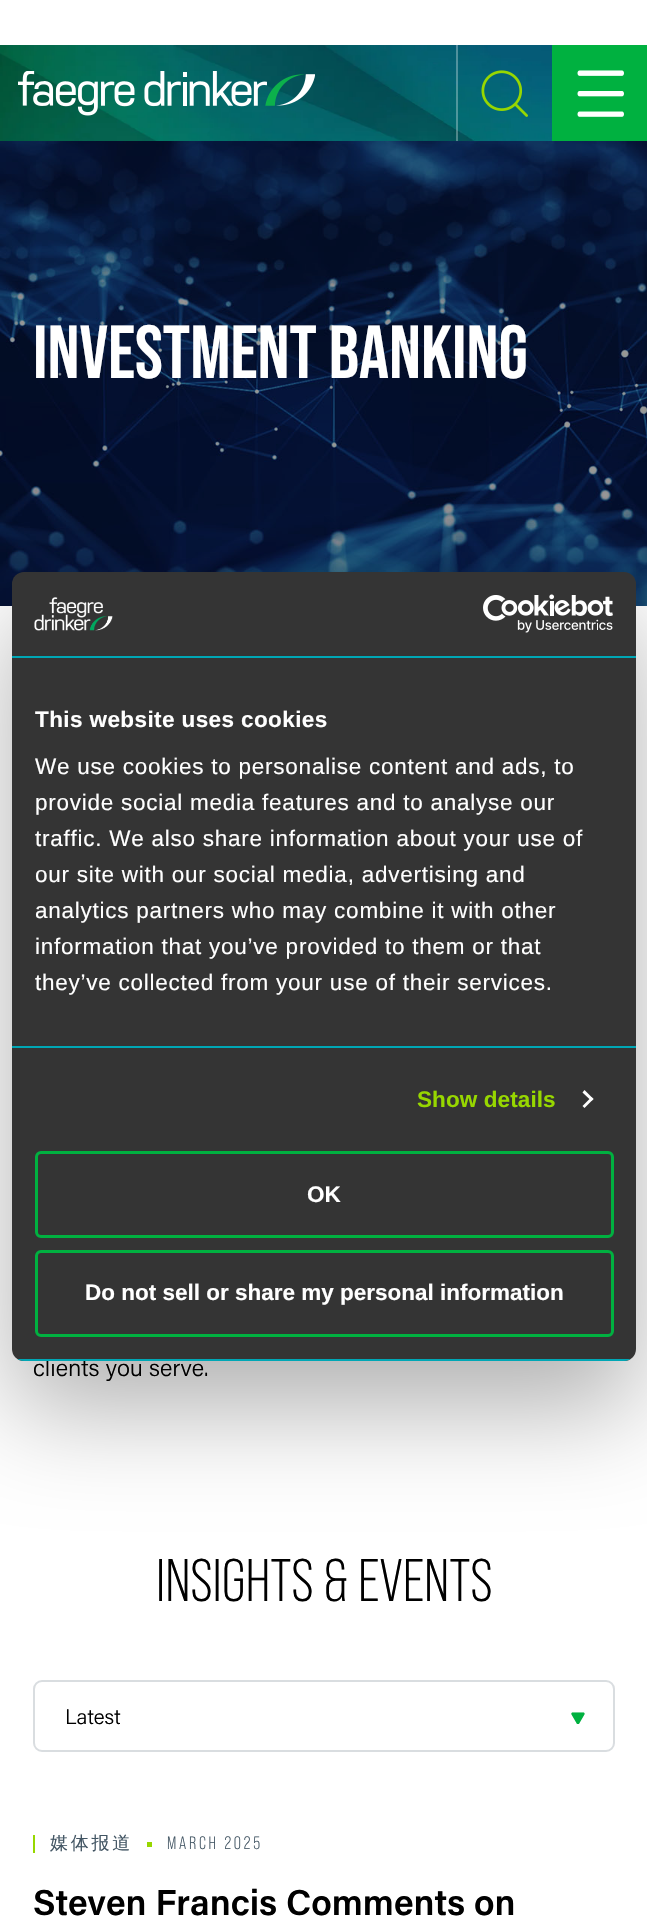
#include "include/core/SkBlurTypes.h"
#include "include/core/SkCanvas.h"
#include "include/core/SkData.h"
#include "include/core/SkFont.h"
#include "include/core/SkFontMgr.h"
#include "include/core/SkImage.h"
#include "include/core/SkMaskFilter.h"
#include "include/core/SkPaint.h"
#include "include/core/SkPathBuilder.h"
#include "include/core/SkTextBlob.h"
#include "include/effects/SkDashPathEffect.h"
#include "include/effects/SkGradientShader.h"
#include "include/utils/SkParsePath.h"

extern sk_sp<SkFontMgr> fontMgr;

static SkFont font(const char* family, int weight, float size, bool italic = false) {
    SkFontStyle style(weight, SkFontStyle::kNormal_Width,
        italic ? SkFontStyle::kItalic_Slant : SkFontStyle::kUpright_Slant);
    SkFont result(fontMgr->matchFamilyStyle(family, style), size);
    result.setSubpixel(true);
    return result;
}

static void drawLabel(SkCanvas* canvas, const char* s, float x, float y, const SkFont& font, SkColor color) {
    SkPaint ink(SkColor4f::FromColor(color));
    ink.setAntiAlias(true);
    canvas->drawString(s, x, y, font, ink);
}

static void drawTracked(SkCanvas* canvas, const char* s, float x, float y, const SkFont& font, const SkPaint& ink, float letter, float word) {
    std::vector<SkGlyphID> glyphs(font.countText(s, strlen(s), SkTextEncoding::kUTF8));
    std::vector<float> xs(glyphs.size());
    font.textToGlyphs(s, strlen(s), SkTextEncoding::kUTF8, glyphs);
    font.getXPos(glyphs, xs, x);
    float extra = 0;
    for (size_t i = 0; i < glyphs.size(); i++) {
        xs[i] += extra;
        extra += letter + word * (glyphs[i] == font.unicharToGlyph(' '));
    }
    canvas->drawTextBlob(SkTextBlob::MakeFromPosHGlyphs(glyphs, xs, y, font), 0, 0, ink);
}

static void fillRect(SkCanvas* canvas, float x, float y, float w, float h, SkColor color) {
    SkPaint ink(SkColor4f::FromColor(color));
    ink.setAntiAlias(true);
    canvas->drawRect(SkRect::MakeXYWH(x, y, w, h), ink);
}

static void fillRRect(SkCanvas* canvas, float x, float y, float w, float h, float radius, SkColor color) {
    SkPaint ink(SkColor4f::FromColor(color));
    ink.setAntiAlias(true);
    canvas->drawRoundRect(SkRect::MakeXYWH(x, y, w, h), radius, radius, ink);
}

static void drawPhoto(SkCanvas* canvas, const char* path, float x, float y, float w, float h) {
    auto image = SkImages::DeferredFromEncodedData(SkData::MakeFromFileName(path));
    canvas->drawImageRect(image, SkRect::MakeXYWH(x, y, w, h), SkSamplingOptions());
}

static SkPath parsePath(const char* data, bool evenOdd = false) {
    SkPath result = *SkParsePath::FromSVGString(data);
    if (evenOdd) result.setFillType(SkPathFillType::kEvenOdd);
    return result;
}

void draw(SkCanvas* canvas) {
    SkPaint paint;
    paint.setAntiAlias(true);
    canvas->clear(0xFFFFFFFF);
    drawPhoto(canvas, "assets/img1.png", 0, 45, 552, 96);
    drawPhoto(canvas, "assets/img2.png", 18, 71, 297, 45);
    fillRect(canvas, 456, 45, 2, 96, 0x4DFFFFFF);
    drawPhoto(canvas, "assets/img3.png", 481, 70, 47, 47);
    fillRect(canvas, 552, 45, 95, 96, 0xFF00B140);
    drawPhoto(canvas, "assets/img4.png", 577, 70, 47, 47);
    drawPhoto(canvas, "assets/img5.png", 0, 141, 647, 465);
    SkFont font1 = font("Bebas Neue", 700, 75);
    drawLabel(canvas, "INVESTMENT BANKING", 33, 378, font1, 0xFFFFFFFF);
    SkFont font2 = font("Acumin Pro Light", 300, 24);
    drawLabel(canvas, "clients you serve.", 33, 1376, font2, 0xFF000000);
    SkFont font3 = font("Bebas Neue", 400, 60);
    drawLabel(canvas, "INSIGHTS & EVENTS", 156, 1601, font3, 0xFF000000);
    paint.setStroke(true);
    paint.setStrokeWidth(2);
    paint.setColor(0xFFD9DDE0);
    canvas->drawRoundRect(SkRect::MakeXYWH(34, 1681, 580, 70), 8, 8, paint);
    SkFont font4 = font("Acumin Pro Light", 300, 21);
    drawLabel(canvas, "Latest", 65, 1724, font4, 0xFF000000);
    drawPhoto(canvas, "assets/img6.png", 571, 1712, 14, 12);
    fillRect(canvas, 33, 1835, 2, 18, 0xFF97D700);
    SkFont font5 = font("WenQuanYi Zen Hei", 500, 18);
    paint.setStroke(false);
    paint.setColor(0xFF425563);
    drawTracked(canvas, "媒体报道", 50, 1849, font5, paint, 2.75f, 0);
    fillRect(canvas, 147, 1842, 5, 5, 0xFF97D700);
    SkFont font6 = font("Bebas Neue", 400, 18);
    drawTracked(canvas, "MARCH 2025", 167, 1849, font6, paint, 2.75f, 0);
    SkFont font7 = font("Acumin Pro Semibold", 600, 36);
    drawLabel(canvas, "Steven Francis Comments on", 33, 1915, font7, 0xFF000000);
    paint.setColor(0x4D000000);
    paint.setMaskFilter(SkMaskFilter::MakeBlur(kNormal_SkBlurStyle, 51));
    canvas->drawRoundRect(SkRect::MakeXYWH(12, 620, 624, 789), 12, 12, paint);
    paint.setMaskFilter(nullptr);
    fillRRect(canvas, 12, 572, 624, 789, 12, 0xFF343434);
    fillRect(canvas, 12, 656, 624, 2, 0xFF00A7B5);
    drawPhoto(canvas, "assets/img7.png", 34, 597, 79, 34);
    drawPhoto(canvas, "assets/img8.png", 483, 594, 130, 39);
    fillRect(canvas, 12, 1046, 624, 2, 0xFF00A7B5);
    SkFont font8 = font("Liberation Sans", 700, 22.5f);
    paint.setColor(0xFFFFFFFF);
    drawTracked(canvas, "This website uses cookies", 35, 727, font8, paint, 0.4f, 0);
    SkFont font9 = font("Liberation Sans", 400, 22.5f);
    drawTracked(canvas, "We use cookies to personalise content and ads, to", 35, 774, font9, paint, 0.75f, 0);
    drawTracked(canvas, "provide social media features and to analyse our", 35, 810, font9, paint, 0.75f, 0);
    drawTracked(canvas, "traffic. We also share information about your use of", 35, 846, font9, paint, 0.75f, 0);
    drawTracked(canvas, "our site with our social media, advertising and", 35, 882, font9, paint, 0.75f, 0);
    drawTracked(canvas, "analytics partners who may combine it with other", 35, 918, font9, paint, 0.75f, 0);
    drawTracked(canvas, "information that you’ve provided to them or that", 35, 954, font9, paint, 0.75f, 0);
    drawTracked(canvas, "they’ve collected from your use of their services.", 35, 990, font9, paint, 0.75f, 0);
    paint.setColor(0xFF97D700);
    drawTracked(canvas, "Show details", 417, 1107, font8, paint, 0.1f, 0);
    paint.setColor(0xFFFFFFFF);
    canvas->drawPath(parsePath("M584.5 1090L593.5 1099L591.5 1101L582.5 1092.5Z"), paint);
    canvas->drawPath(parsePath("M591.5 1097L593.5 1099L584.5 1108L582.5 1106Z"), paint);
    canvas->save();
    canvas->clipPath(parsePath("M24 572H624C630.5 572 636 577.5 636 584V1349C636 1355.5 630.5 1361 624 1361H24C17.5 1361 12 1355.5 12 1349V584C12 577.5 17.5 572 24 572Z"), true);
    fillRect(canvas, 12, 1359, 624, 2, 0xFF00A7B5);
    canvas->restore();
    paint.setStroke(true);
    paint.setStrokeWidth(3);
    paint.setColor(0xFF00B140);
    canvas->drawRoundRect(SkRect::MakeXYWH(36.5f, 1152.5f, 576, 84), 4.5f, 4.5f, paint);
    drawLabel(canvas, "OK", 307, 1202, font8, 0xFFFFFFFF);
    canvas->drawRoundRect(SkRect::MakeXYWH(36.5f, 1251.5f, 576, 84), 4.5f, 4.5f, paint);
    drawLabel(canvas, "Do not sell or share my personal information", 85, 1300, font8, 0xFFFFFFFF);
}
